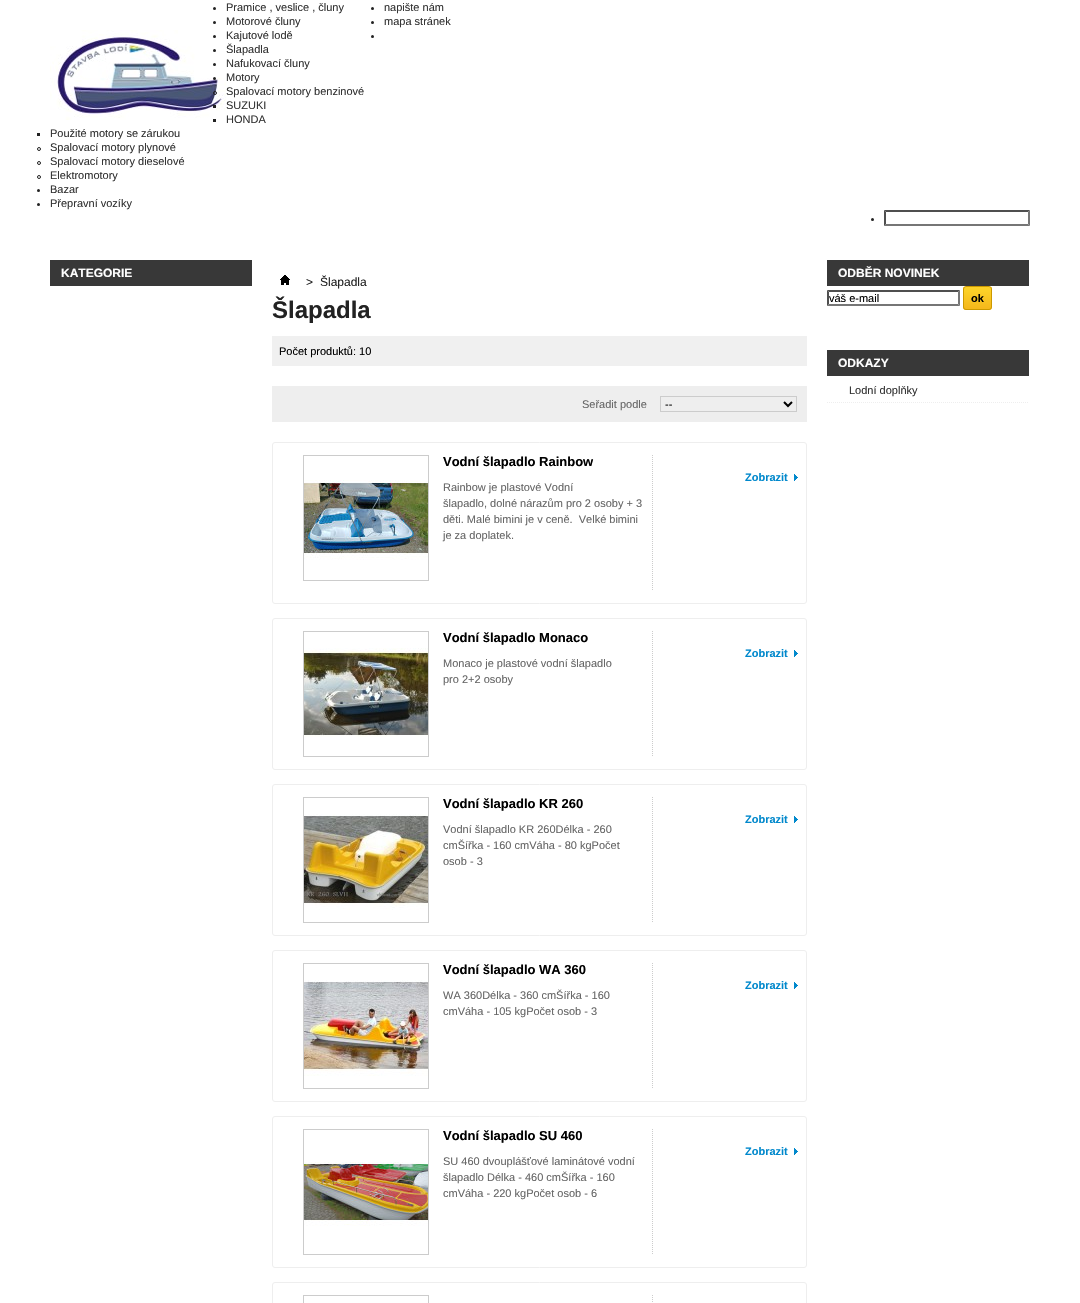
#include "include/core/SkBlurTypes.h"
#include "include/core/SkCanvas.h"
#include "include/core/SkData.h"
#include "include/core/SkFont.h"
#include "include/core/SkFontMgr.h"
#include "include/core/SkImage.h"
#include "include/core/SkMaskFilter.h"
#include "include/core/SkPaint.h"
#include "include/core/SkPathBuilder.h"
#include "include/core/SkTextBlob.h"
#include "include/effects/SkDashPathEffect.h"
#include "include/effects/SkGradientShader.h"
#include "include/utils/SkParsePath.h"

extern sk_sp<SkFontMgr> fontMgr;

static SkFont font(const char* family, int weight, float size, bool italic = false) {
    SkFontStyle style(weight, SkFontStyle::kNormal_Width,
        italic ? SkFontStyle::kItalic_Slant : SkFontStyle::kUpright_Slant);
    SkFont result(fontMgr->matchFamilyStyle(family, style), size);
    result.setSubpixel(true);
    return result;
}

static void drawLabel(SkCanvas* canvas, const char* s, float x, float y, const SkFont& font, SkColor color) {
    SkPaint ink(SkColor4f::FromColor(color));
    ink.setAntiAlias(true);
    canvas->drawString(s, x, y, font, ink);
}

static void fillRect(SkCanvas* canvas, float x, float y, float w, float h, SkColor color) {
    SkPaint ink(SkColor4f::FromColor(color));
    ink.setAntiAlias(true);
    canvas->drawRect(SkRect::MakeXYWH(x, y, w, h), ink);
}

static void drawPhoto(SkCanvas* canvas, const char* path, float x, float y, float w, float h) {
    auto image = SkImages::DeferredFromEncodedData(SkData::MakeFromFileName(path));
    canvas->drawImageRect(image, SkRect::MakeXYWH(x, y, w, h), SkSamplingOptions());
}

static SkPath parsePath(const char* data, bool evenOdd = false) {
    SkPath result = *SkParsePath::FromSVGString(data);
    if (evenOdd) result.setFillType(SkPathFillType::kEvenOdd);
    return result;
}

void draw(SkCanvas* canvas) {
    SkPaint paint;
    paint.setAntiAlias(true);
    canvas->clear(0xFFFFFFFF);
    paint.setColor(0xFF222222);
    canvas->drawCircle(214.5f, 8.5f, 1.5f, paint);
    SkFont font1 = font("Liberation Sans", 400, 11);
    drawLabel(canvas, "Pramice , veslice , čluny", 226, 11, font1, 0xFF333333);
    canvas->drawCircle(214.5f, 22.5f, 1.5f, paint);
    drawLabel(canvas, "Motorové čluny", 226, 25, font1, 0xFF333333);
    drawPhoto(canvas, "assets/img1.png", 50, 30, 176, 90);
    canvas->drawCircle(214.5f, 36.5f, 1.5f, paint);
    drawLabel(canvas, "Kajutové lodě", 226, 39, font1, 0xFF333333);
    canvas->drawCircle(214.5f, 50.5f, 1.5f, paint);
    drawLabel(canvas, "Šlapadla", 226, 53, font1, 0xFF333333);
    canvas->drawCircle(214.5f, 64.5f, 1.5f, paint);
    drawLabel(canvas, "Nafukovací čluny", 226, 67, font1, 0xFF333333);
    canvas->drawCircle(214.5f, 78.5f, 1.5f, paint);
    drawLabel(canvas, "Motory", 226, 81, font1, 0xFF333333);
    paint.setStroke(true);
    paint.setStrokeWidth(1);
    canvas->drawCircle(215, 93, 1.5f, paint);
    drawLabel(canvas, "Spalovací motory benzinové", 226, 95, font1, 0xFF333333);
    fillRect(canvas, 213, 105, 3, 3, 0xFF222222);
    drawLabel(canvas, "SUZUKI", 226, 109, font1, 0xFF333333);
    fillRect(canvas, 213, 119, 3, 3, 0xFF222222);
    drawLabel(canvas, "HONDA", 226, 123, font1, 0xFF333333);
    fillRect(canvas, 37, 133, 3, 3, 0xFF222222);
    drawLabel(canvas, "Použité motory se zárukou", 50, 137, font1, 0xFF333333);
    canvas->drawCircle(39, 149, 1.5f, paint);
    drawLabel(canvas, "Spalovací motory plynové", 50, 151, font1, 0xFF333333);
    canvas->drawCircle(39, 163, 1.5f, paint);
    drawLabel(canvas, "Spalovací motory dieselové", 50, 165, font1, 0xFF333333);
    canvas->drawCircle(39, 177, 1.5f, paint);
    drawLabel(canvas, "Elektromotory", 50, 179, font1, 0xFF333333);
    paint.setStroke(false);
    canvas->drawCircle(38.5f, 190.5f, 1.5f, paint);
    drawLabel(canvas, "Bazar", 50, 193, font1, 0xFF333333);
    canvas->drawCircle(38.5f, 204.5f, 1.5f, paint);
    drawLabel(canvas, "Přepravní vozíky", 50, 207, font1, 0xFF333333);
    canvas->drawCircle(872.5f, 219.5f, 1.5f, paint);
    paint.setColor(0xFF4F4F4F);
    canvas->drawPath(parsePath("M884 210H1030L1028 212H886Z"), paint);
    paint.setColor(0xFF767676);
    canvas->drawPath(parsePath("M1030 210V226L1028 224V212Z"), paint);
    canvas->drawPath(parsePath("M1030 226H884L886 224H1028Z"), paint);
    paint.setColor(0xFF4F4F4F);
    canvas->drawPath(parsePath("M884 226V210L886 212V224Z"), paint);
    paint.setColor(0xFF222222);
    canvas->drawCircle(372.5f, 8.5f, 1.5f, paint);
    drawLabel(canvas, "napište nám", 384, 11, font1, 0xFF333333);
    canvas->drawCircle(372.5f, 22.5f, 1.5f, paint);
    drawLabel(canvas, "mapa stránek", 384, 25, font1, 0xFF333333);
    canvas->drawCircle(372.5f, 36.5f, 1.5f, paint);
    fillRect(canvas, 50, 260, 202, 26, 0xFF383838);
    SkFont font2 = font("Liberation Sans", 700, 12);
    drawLabel(canvas, "KATEGORIE", 61, 277, font2, 0xFFFFFFFF);
    fillRect(canvas, 827, 260, 202, 26, 0xFF383838);
    drawLabel(canvas, "ODBĚR NOVINEK", 838, 277, font2, 0xFFFFFFFF);
    paint.setColor(0xFF4F4F4F);
    canvas->drawPath(parsePath("M827 290H960L958 292H829Z"), paint);
    paint.setColor(0xFF767676);
    canvas->drawPath(parsePath("M960 290V306L958 304V292Z"), paint);
    canvas->drawPath(parsePath("M960 306H827L829 304H958Z"), paint);
    paint.setColor(0xFF4F4F4F);
    canvas->drawPath(parsePath("M827 306V290L829 292V304Z"), paint);
    drawLabel(canvas, "váš e-mail", 829, 302, font1, 0xFF000000);
    drawPhoto(canvas, "assets/img2.png", 963, 287, 29, 23);
    paint.setStroke(true);
    paint.setColor(0xFFCC9900);
    canvas->drawRoundRect(SkRect::MakeXYWH(963.5f, 286.5f, 28, 23), 2.5f, 2.5f, paint);
    SkFont font3 = font("Liberation Sans", 700, 11);
    drawLabel(canvas, "ok", 971, 302, font3, 0xFF000000);
    fillRect(canvas, 827, 350, 202, 26, 0xFF383838);
    drawLabel(canvas, "ODKAZY", 838, 367, font2, 0xFFFFFFFF);
    paint.setColor(0xFFEEEEEE);
    paint.setPathEffect(SkDashPathEffect::Make({{1, 1}}, 0));
    canvas->drawPath(parsePath("M827 402.5H1029"), paint);
    paint.setPathEffect(nullptr);
    drawLabel(canvas, "Lodní doplňky", 849, 394, font1, 0xFF333333);
    drawPhoto(canvas, "assets/img3.png", 280, 275, 10, 10);
    SkFont font4 = font("Liberation Sans", 400, 12);
    drawLabel(canvas, ">", 306, 286, font4, 0xFF222222);
    drawLabel(canvas, "Šlapadla", 320, 286, font4, 0xFF222222);
    SkFont font5 = font("Liberation Sans", 700, 24);
    drawLabel(canvas, "Šlapadla", 272, 318, font5, 0xFF222222);
    fillRect(canvas, 272, 336, 535, 30, 0xFFF0F0F0);
    drawLabel(canvas, "Počet produktů: 10", 279, 355, font1, 0xFF000000);
    fillRect(canvas, 272, 386, 535, 36, 0xFFEEEEEE);
    drawLabel(canvas, "Seřadit podle", 582, 408, font1, 0xFF666666);
    paint.setColor(0xFFCCCCCC);
    canvas->drawRect(SkRect::MakeXYWH(660.5f, 396.5f, 136, 15), paint);
    paint.setStrokeWidth(2);
    paint.setColor(0xFF000000);
    canvas->drawPath(parsePath("M784 402L788 406L792 402"), paint);
    drawLabel(canvas, "--", 665, 408, font1, 0xFF000000);
    paint.setStrokeWidth(1);
    paint.setColor(0xFFEEEEEE);
    canvas->drawRoundRect(SkRect::MakeXYWH(272.5f, 442.5f, 534, 161), 2.5f, 2.5f, paint);
    paint.setColor(0xFFCCCCCC);
    paint.setPathEffect(SkDashPathEffect::Make({{1, 1}}, 0));
    canvas->drawPath(parsePath("M652.5 455V591"), paint);
    paint.setPathEffect(nullptr);
    canvas->drawRect(SkRect::MakeXYWH(303.5f, 455.5f, 125, 125), paint);
    drawPhoto(canvas, "assets/img4.png", 304, 480, 124, 80);
    SkFont font6 = font("Liberation Sans", 700, 13);
    drawLabel(canvas, "Vodní šlapadlo Rainbow", 443, 466, font6, 0xFF000000);
    drawLabel(canvas, "Rainbow je plastové Vodní", 443, 491, font1, 0xFF666666);
    drawLabel(canvas, "šlapadlo, dolné nárazům pro 2 osoby + 3", 443, 507, font1, 0xFF666666);
    drawLabel(canvas, "děti. Malé bimini je v ceně.  Velké bimini", 443, 523, font1, 0xFF666666);
    drawLabel(canvas, "je za doplatek.", 443, 539, font1, 0xFF666666);
    drawPhoto(canvas, "assets/img5.png", 794, 474, 4, 7);
    drawLabel(canvas, "Zobrazit", 745, 481, font3, 0xFF0088CC);
    paint.setColor(0xFFEEEEEE);
    canvas->drawRoundRect(SkRect::MakeXYWH(272.5f, 618.5f, 534, 151), 2.5f, 2.5f, paint);
    paint.setColor(0xFFCCCCCC);
    paint.setPathEffect(SkDashPathEffect::Make({{1, 1}}, 0));
    canvas->drawPath(parsePath("M652.5 631V757"), paint);
    paint.setPathEffect(nullptr);
    canvas->drawRect(SkRect::MakeXYWH(303.5f, 631.5f, 125, 125), paint);
    drawPhoto(canvas, "assets/img6.png", 304, 648, 124, 89);
    drawLabel(canvas, "Vodní šlapadlo Monaco", 443, 642, font6, 0xFF000000);
    drawLabel(canvas, "Monaco je plastové vodní šlapadlo", 443, 667, font1, 0xFF666666);
    drawLabel(canvas, "pro 2+2 osoby", 443, 683, font1, 0xFF666666);
    drawPhoto(canvas, "assets/img5.png", 794, 650, 4, 7);
    drawLabel(canvas, "Zobrazit", 745, 657, font3, 0xFF0088CC);
    paint.setColor(0xFFEEEEEE);
    canvas->drawRoundRect(SkRect::MakeXYWH(272.5f, 784.5f, 534, 151), 2.5f, 2.5f, paint);
    paint.setColor(0xFFCCCCCC);
    paint.setPathEffect(SkDashPathEffect::Make({{1, 1}}, 0));
    canvas->drawPath(parsePath("M652.5 797V923"), paint);
    paint.setPathEffect(nullptr);
    canvas->drawRect(SkRect::MakeXYWH(303.5f, 797.5f, 125, 125), paint);
    drawPhoto(canvas, "assets/img7.png", 304, 814, 124, 96);
    drawLabel(canvas, "Vodní šlapadlo KR 260", 443, 808, font6, 0xFF000000);
    drawLabel(canvas, "Vodní šlapadlo KR 260Délka - 260", 443, 833, font1, 0xFF666666);
    drawLabel(canvas, "cmŠířka - 160 cmVáha - 80 kgPočet", 443, 849, font1, 0xFF666666);
    drawLabel(canvas, "osob - 3", 443, 865, font1, 0xFF666666);
    drawPhoto(canvas, "assets/img5.png", 794, 816, 4, 7);
    drawLabel(canvas, "Zobrazit", 745, 823, font3, 0xFF0088CC);
    paint.setColor(0xFFEEEEEE);
    canvas->drawRoundRect(SkRect::MakeXYWH(272.5f, 950.5f, 534, 151), 2.5f, 2.5f, paint);
    paint.setColor(0xFFCCCCCC);
    paint.setPathEffect(SkDashPathEffect::Make({{1, 1}}, 0));
    canvas->drawPath(parsePath("M652.5 963V1089"), paint);
    paint.setPathEffect(nullptr);
    canvas->drawRect(SkRect::MakeXYWH(303.5f, 963.5f, 125, 125), paint);
    drawPhoto(canvas, "assets/img8.png", 304, 980, 124, 96);
    drawLabel(canvas, "Vodní šlapadlo WA 360", 443, 974, font6, 0xFF000000);
    drawLabel(canvas, "WA 360Délka - 360 cmŠířka - 160", 443, 999, font1, 0xFF666666);
    drawLabel(canvas, "cmVáha - 105 kgPočet osob - 3", 443, 1015, font1, 0xFF666666);
    drawPhoto(canvas, "assets/img5.png", 794, 982, 4, 7);
    drawLabel(canvas, "Zobrazit", 745, 989, font3, 0xFF0088CC);
    paint.setColor(0xFFEEEEEE);
    canvas->drawRoundRect(SkRect::MakeXYWH(272.5f, 1116.5f, 534, 151), 2.5f, 2.5f, paint);
    paint.setColor(0xFFCCCCCC);
    paint.setPathEffect(SkDashPathEffect::Make({{1, 1}}, 0));
    canvas->drawPath(parsePath("M652.5 1129V1255"), paint);
    paint.setPathEffect(nullptr);
    canvas->drawRect(SkRect::MakeXYWH(303.5f, 1129.5f, 125, 125), paint);
    drawPhoto(canvas, "assets/img9.png", 304, 1162, 124, 64);
    drawLabel(canvas, "Vodní šlapadlo SU 460", 443, 1140, font6, 0xFF000000);
    drawLabel(canvas, "SU 460 dvouplášťové laminátové vodní", 443, 1165, font1, 0xFF666666);
    drawLabel(canvas, "šlapadlo Délka - 460 cmŠířka - 160", 443, 1181, font1, 0xFF666666);
    drawLabel(canvas, "cmVáha - 220 kgPočet osob - 6", 443, 1197, font1, 0xFF666666);
    drawPhoto(canvas, "assets/img5.png", 794, 1148, 4, 7);
    drawLabel(canvas, "Zobrazit", 745, 1155, font3, 0xFF0088CC);
    paint.setColor(0xFFEEEEEE);
    canvas->drawRoundRect(SkRect::MakeXYWH(272.5f, 1282.5f, 534, 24), 2.5f, 2.5f, paint);
    paint.setColor(0xFFCCCCCC);
    paint.setPathEffect(SkDashPathEffect::Make({{1, 1}}, 0));
    canvas->drawPath(parsePath("M652.5 1295V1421"), paint);
    paint.setPathEffect(nullptr);
    canvas->drawRect(SkRect::MakeXYWH(303.5f, 1295.5f, 125, 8), paint);
}
